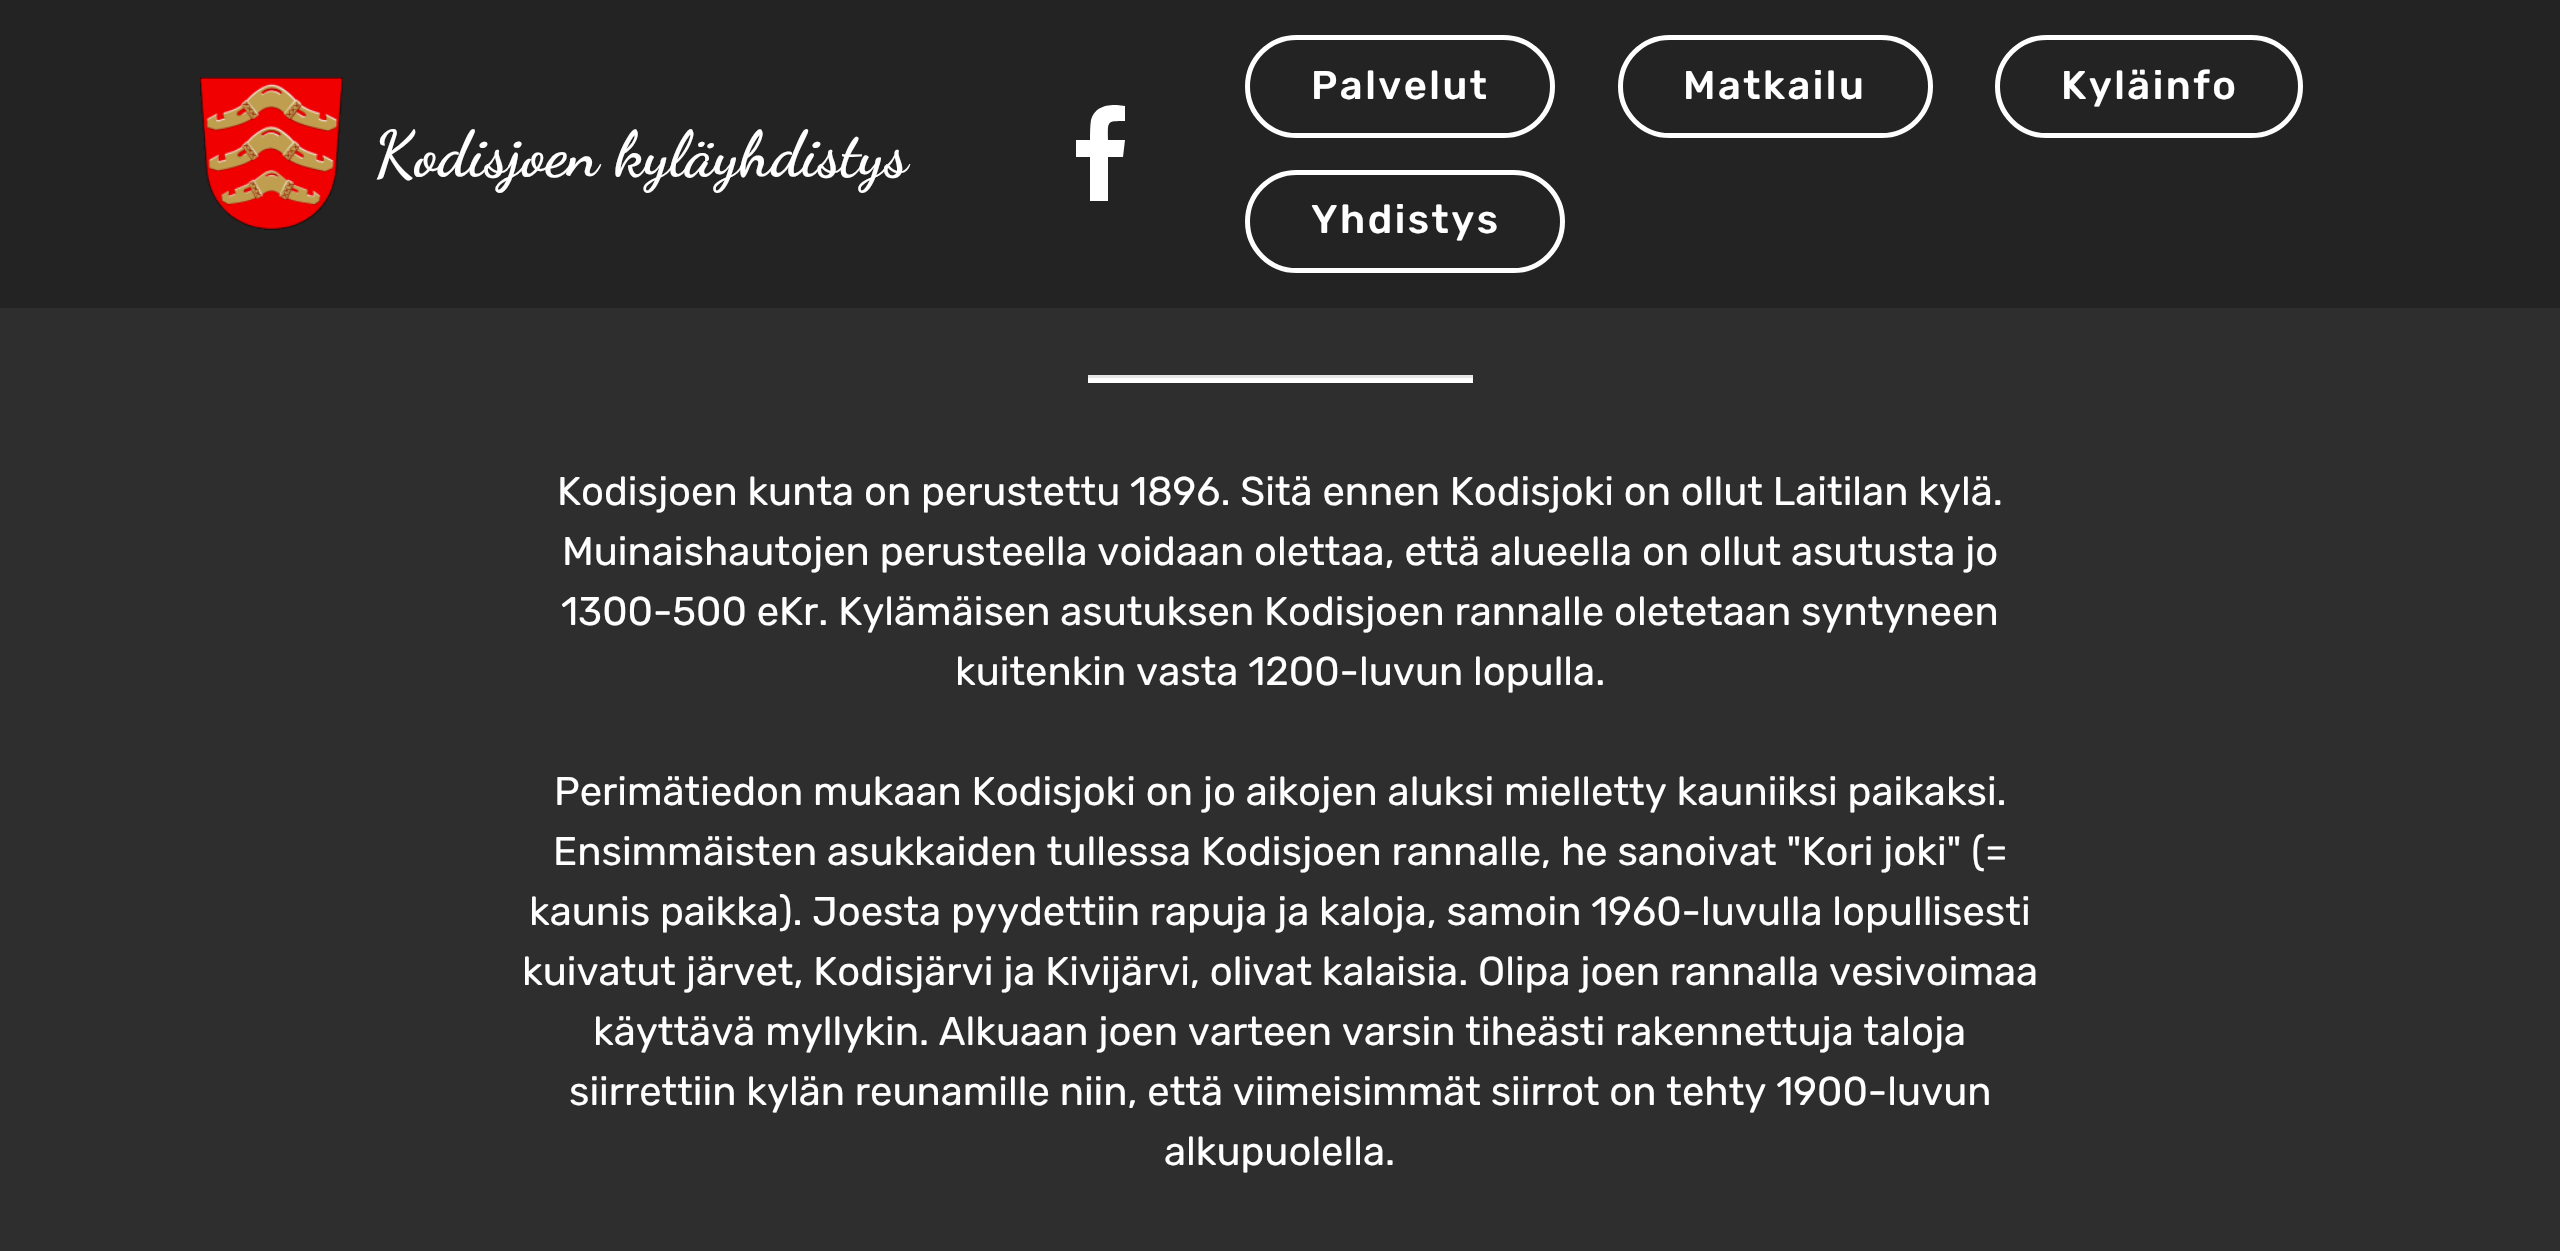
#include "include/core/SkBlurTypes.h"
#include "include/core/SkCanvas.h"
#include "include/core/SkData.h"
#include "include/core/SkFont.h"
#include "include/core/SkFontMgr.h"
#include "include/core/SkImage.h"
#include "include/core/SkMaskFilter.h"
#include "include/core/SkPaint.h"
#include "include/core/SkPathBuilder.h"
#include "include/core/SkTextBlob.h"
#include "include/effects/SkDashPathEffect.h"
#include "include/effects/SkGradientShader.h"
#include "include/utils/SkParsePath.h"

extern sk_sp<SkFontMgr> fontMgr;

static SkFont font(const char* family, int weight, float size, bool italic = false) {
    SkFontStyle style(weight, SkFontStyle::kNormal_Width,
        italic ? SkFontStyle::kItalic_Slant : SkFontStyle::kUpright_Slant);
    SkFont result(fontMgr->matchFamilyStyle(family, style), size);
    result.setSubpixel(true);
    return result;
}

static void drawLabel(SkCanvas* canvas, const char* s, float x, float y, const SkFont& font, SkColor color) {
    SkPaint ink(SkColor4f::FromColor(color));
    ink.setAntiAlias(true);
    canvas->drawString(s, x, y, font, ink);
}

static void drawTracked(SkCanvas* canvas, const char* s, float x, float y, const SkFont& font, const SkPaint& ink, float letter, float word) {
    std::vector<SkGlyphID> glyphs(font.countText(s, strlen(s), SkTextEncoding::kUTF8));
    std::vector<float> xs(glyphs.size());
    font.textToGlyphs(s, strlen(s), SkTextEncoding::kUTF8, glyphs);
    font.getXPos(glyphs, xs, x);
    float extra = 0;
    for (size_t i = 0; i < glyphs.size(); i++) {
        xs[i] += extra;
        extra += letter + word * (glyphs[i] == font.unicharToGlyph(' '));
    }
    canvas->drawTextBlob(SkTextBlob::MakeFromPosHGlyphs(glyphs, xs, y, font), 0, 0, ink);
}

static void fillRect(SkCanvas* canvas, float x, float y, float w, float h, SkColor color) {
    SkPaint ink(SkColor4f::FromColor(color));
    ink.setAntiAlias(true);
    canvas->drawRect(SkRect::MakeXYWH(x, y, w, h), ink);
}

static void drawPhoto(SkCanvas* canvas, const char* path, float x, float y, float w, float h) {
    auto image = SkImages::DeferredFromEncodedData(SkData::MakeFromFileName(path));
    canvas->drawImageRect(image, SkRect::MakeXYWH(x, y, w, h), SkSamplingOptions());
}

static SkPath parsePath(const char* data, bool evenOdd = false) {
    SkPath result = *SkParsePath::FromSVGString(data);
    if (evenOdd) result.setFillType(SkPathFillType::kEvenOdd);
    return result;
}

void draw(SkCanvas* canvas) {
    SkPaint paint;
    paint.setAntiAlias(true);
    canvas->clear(0xFF2E2E2E);
    fillRect(canvas, 0, 0, 2560, 308, 0xFF232323);
    drawPhoto(canvas, "assets/img1.png", 200, 77, 143, 153);
    SkFont font1 = font("Dancing Script", 700, 64);
    drawLabel(canvas, "Kodisjoen kyläyhdistys", 374, 175, font1, 0xFFFFFFFF);
    paint.setColor(0xFFFFFFFF);
    canvas->drawPath(parsePath("M1108 201V157H1123L1125 140H1108C1108 121 1106 121 1125 121V106L1117 105C1105 105 1095 107 1091 120C1090 126 1090 134 1090 140H1076V157H1090V201Z"), paint);
    paint.setStroke(true);
    paint.setStrokeWidth(5);
    canvas->drawRoundRect(SkRect::MakeXYWH(1247.5f, 37.5f, 305, 98), 49, 49, paint);
    SkFont font2 = font("Rubik", 500, 40);
    paint.setStroke(false);
    drawTracked(canvas, "Palvelut", 1311, 99, font2, paint, 2.5f, 0);
    paint.setStroke(true);
    canvas->drawRoundRect(SkRect::MakeXYWH(1620.5f, 37.5f, 310, 98), 49, 49, paint);
    paint.setStroke(false);
    drawTracked(canvas, "Matkailu", 1683, 99, font2, paint, 2.5f, 0);
    paint.setStroke(true);
    canvas->drawRoundRect(SkRect::MakeXYWH(1997.5f, 37.5f, 303, 98), 49, 49, paint);
    paint.setStroke(false);
    drawTracked(canvas, "Kyläinfo", 2061, 99, font2, paint, 2.5f, 0);
    paint.setStroke(true);
    canvas->drawRoundRect(SkRect::MakeXYWH(1247.5f, 172.5f, 315, 98), 49, 49, paint);
    paint.setStroke(false);
    drawTracked(canvas, "Yhdistys", 1311, 233, font2, paint, 2.5f, 0);
    fillRect(canvas, 1088, 378, 385, 5, 0xFFFFFFFF);
    fillRect(canvas, 1088, 375, 385, 3, 0xFFE6E6E6);
    SkFont font3 = font("Rubik", 400, 40);
    drawLabel(canvas, "Kodisjoen kunta on perustettu 1896. Sitä ennen Kodisjoki on ollut Laitilan kylä.", 557, 505, font3, 0xFFFFFFFF);
    drawLabel(canvas, "Muinaishautojen perusteella voidaan olettaa, että alueella on ollut asutusta jo", 562, 565, font3, 0xFFFFFFFF);
    drawLabel(canvas, "1300-500 eKr. Kylämäisen asutuksen Kodisjoen rannalle oletetaan syntyneen", 561, 625, font3, 0xFFFFFFFF);
    drawLabel(canvas, "kuitenkin vasta 1200-luvun lopulla.", 955, 685, font3, 0xFFFFFFFF);
    drawLabel(canvas, "Perimätiedon mukaan Kodisjoki on jo aikojen aluksi mielletty kauniiksi paikaksi.", 554, 805, font3, 0xFFFFFFFF);
    drawLabel(canvas, "Ensimmäisten asukkaiden tullessa Kodisjoen rannalle, he sanoivat \"Kori joki\" (=", 553, 865, font3, 0xFFFFFFFF);
    drawLabel(canvas, "kaunis paikka). Joesta pyydettiin rapuja ja kaloja, samoin 1960-luvulla lopullisesti", 529, 925, font3, 0xFFFFFFFF);
    drawLabel(canvas, "kuivatut järvet, Kodisjärvi ja Kivijärvi, olivat kalaisia. Olipa joen rannalla vesivoimaa", 522, 985, font3, 0xFFFFFFFF);
    drawLabel(canvas, "käyttävä myllykin. Alkuaan joen varteen varsin tiheästi rakennettuja taloja", 593, 1045, font3, 0xFFFFFFFF);
    drawLabel(canvas, "siirrettiin kylän reunamille niin, että viimeisimmät siirrot on tehty 1900-luvun", 569, 1105, font3, 0xFFFFFFFF);
    drawLabel(canvas, "alkupuolella.", 1164, 1165, font3, 0xFFFFFFFF);
}
